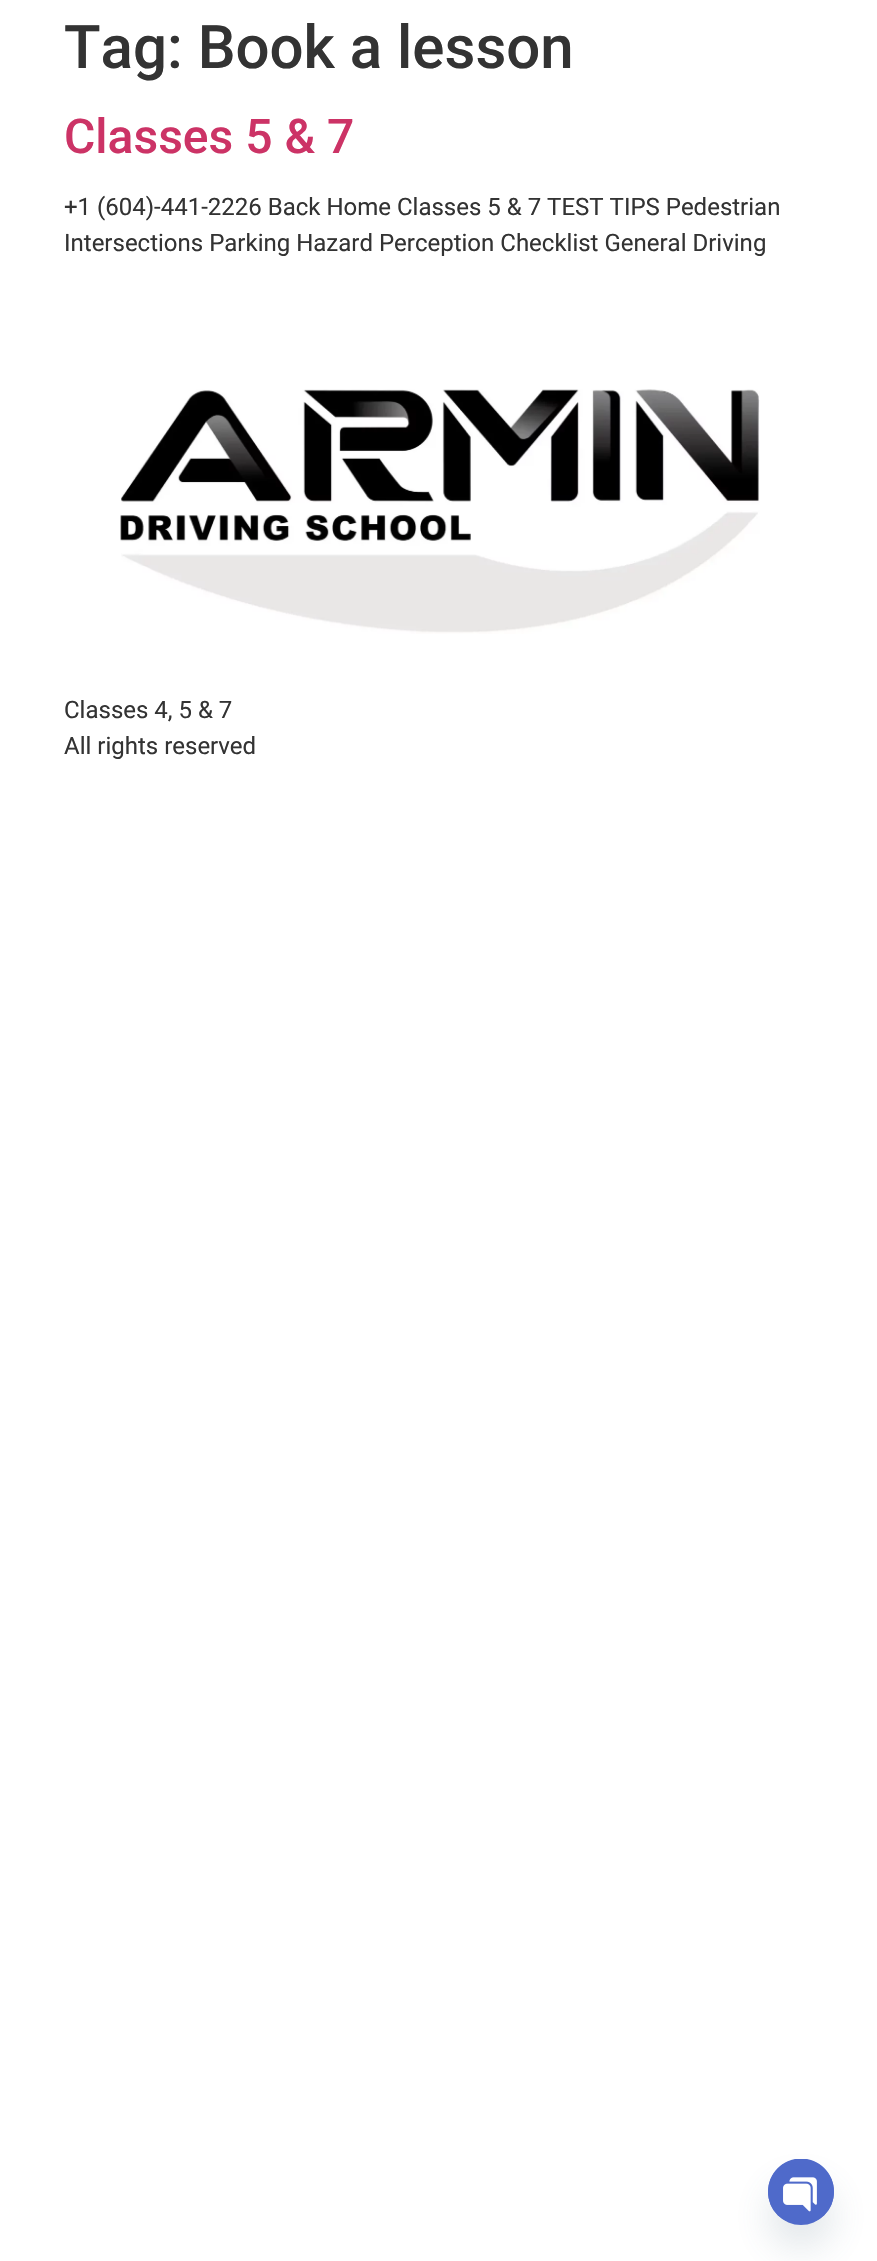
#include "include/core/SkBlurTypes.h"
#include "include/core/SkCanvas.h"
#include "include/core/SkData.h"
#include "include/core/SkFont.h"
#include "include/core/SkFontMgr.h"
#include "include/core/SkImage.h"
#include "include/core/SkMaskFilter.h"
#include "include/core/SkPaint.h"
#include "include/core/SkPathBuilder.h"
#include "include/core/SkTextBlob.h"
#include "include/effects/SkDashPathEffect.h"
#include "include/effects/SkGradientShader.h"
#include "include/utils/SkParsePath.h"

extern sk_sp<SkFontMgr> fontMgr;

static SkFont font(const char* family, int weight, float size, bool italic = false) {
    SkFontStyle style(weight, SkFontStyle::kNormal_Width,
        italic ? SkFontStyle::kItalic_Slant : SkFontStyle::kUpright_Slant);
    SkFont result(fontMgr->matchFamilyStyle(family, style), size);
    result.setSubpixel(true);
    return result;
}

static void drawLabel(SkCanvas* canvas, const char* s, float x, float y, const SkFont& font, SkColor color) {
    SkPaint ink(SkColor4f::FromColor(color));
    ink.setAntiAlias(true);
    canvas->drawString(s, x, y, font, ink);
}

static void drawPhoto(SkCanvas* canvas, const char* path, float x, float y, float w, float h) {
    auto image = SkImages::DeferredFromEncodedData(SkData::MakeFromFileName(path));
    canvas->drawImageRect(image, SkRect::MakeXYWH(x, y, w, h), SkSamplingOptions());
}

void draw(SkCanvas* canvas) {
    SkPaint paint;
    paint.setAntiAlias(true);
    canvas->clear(0xFFFFFFFF);
    SkFont font1 = font("Roboto", 500, 60);
    drawLabel(canvas, "Tag: Book a lesson", 64, 68, font1, 0xFF333333);
    SkFont font2 = font("Roboto", 500, 48);
    drawLabel(canvas, "Classes 5 & 7", 64, 153, font2, 0xFFCC3366);
    SkFont font3 = font("Roboto", 400, 24);
    drawLabel(canvas, "+1 (604)-441-2226 Back Home Classes 5 & 7 TEST TIPS Pedestrian", 64, 215, font3, 0xFF333333);
    drawLabel(canvas, "Intersections Parking Hazard Perception Checklist General Driving", 64, 251, font3, 0xFF333333);
    drawPhoto(canvas, "assets/img1.png", 120, 389, 640, 245);
    drawLabel(canvas, "Classes 4, 5 & 7", 64, 718, font3, 0xFF333333);
    drawLabel(canvas, "All rights reserved", 64, 754, font3, 0xFF333333);
    paint.setColor(0x2949687E);
    paint.setMaskFilter(SkMaskFilter::MakeBlur(kNormal_SkBlurStyle, 18));
    canvas->drawRoundRect(SkRect::MakeXYWH(768, 2183, 66, 66), 33, 33, paint);
    paint.setMaskFilter(nullptr);
    paint.setColor(0xFF4F6ACA);
    canvas->drawCircle(801, 2192, 33, paint);
    drawPhoto(canvas, "assets/img2.png", 768, 2159, 66, 62);
}
